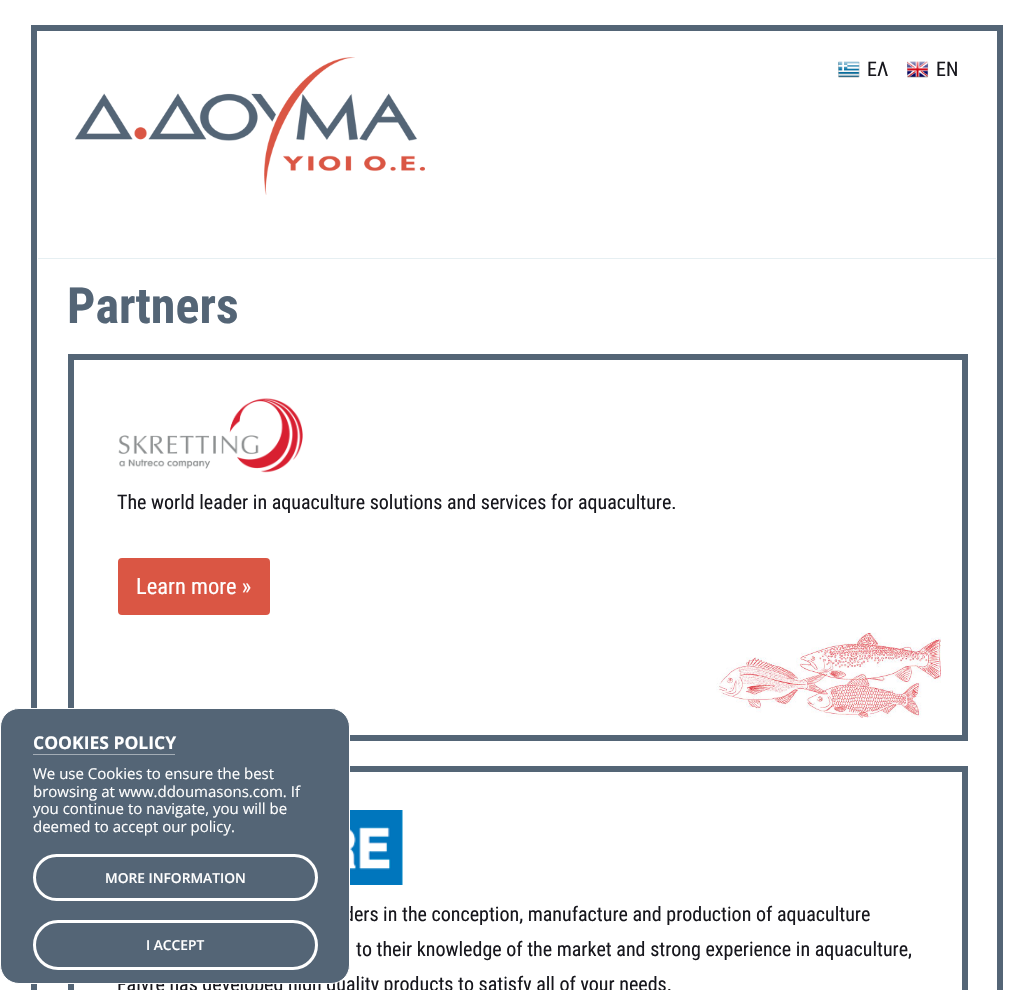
#include "include/core/SkBlurTypes.h"
#include "include/core/SkCanvas.h"
#include "include/core/SkData.h"
#include "include/core/SkFont.h"
#include "include/core/SkFontMgr.h"
#include "include/core/SkImage.h"
#include "include/core/SkMaskFilter.h"
#include "include/core/SkPaint.h"
#include "include/core/SkPathBuilder.h"
#include "include/core/SkTextBlob.h"
#include "include/effects/SkDashPathEffect.h"
#include "include/effects/SkGradientShader.h"
#include "include/utils/SkParsePath.h"

extern sk_sp<SkFontMgr> fontMgr;

static SkFont font(const char* family, int weight, float size, bool italic = false) {
    SkFontStyle style(weight, SkFontStyle::kNormal_Width,
        italic ? SkFontStyle::kItalic_Slant : SkFontStyle::kUpright_Slant);
    SkFont result(fontMgr->matchFamilyStyle(family, style), size);
    result.setSubpixel(true);
    return result;
}

static void drawLabel(SkCanvas* canvas, const char* s, float x, float y, const SkFont& font, SkColor color) {
    SkPaint ink(SkColor4f::FromColor(color));
    ink.setAntiAlias(true);
    canvas->drawString(s, x, y, font, ink);
}

static void fillRect(SkCanvas* canvas, float x, float y, float w, float h, SkColor color) {
    SkPaint ink(SkColor4f::FromColor(color));
    ink.setAntiAlias(true);
    canvas->drawRect(SkRect::MakeXYWH(x, y, w, h), ink);
}

static void fillRRect(SkCanvas* canvas, float x, float y, float w, float h, float radius, SkColor color) {
    SkPaint ink(SkColor4f::FromColor(color));
    ink.setAntiAlias(true);
    canvas->drawRoundRect(SkRect::MakeXYWH(x, y, w, h), radius, radius, ink);
}

static void drawPhoto(SkCanvas* canvas, const char* path, float x, float y, float w, float h) {
    auto image = SkImages::DeferredFromEncodedData(SkData::MakeFromFileName(path));
    canvas->drawImageRect(image, SkRect::MakeXYWH(x, y, w, h), SkSamplingOptions());
}

void draw(SkCanvas* canvas) {
    SkPaint paint;
    paint.setAntiAlias(true);
    canvas->clear(0xFFFFFFFF);
    paint.setStroke(true);
    paint.setStrokeWidth(6);
    paint.setColor(0xFF546576);
    canvas->drawRect(SkRect::MakeXYWH(34, 28, 966, 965), paint);
    fillRect(canvas, 38, 258, 958, 1, 0xFFE6EFF2);
    drawPhoto(canvas, "assets/img1.png", 75, 57, 350, 138);
    drawPhoto(canvas, "assets/img2.png", 838, 61, 22, 17);
    SkFont font1 = font("Roboto Condensed", 400, 20);
    drawLabel(canvas, "ΕΛ", 867, 76, font1, 0xFF17171D);
    drawPhoto(canvas, "assets/img3.png", 907, 61, 22, 17);
    drawLabel(canvas, "EN", 936, 76, font1, 0xFF17171D);
    SkFont font2 = font("Roboto Condensed", 700, 50);
    drawLabel(canvas, "Partners", 67, 323, font2, 0xFF546576);
    canvas->drawRect(SkRect::MakeXYWH(71, 357, 894, 381), paint);
    drawPhoto(canvas, "assets/img4.png", 118, 398, 185, 75);
    drawLabel(canvas, "The world leader in aquaculture solutions and services for aquaculture.", 117, 509, font1, 0xFF17171D);
    fillRRect(canvas, 118, 558, 152, 57, 4, 0xFFDA5644);
    SkFont font3 = font("Roboto Condensed", 400, 22.5f);
    drawLabel(canvas, "Learn more »", 136, 594, font3, 0xFFFFFFFF);
    drawPhoto(canvas, "assets/img5.png", 716, 632, 225, 86);
    canvas->drawRect(SkRect::MakeXYWH(71, 769, 894, 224), paint);
    drawPhoto(canvas, "assets/img6.png", 350, 810, 53, 75);
    drawLabel(canvas, "ders in the conception, manufacture and production of aquaculture", 344, 921, font1, 0xFF17171D);
    drawLabel(canvas, "to their knowledge of the market and strong experience in aquaculture,", 356, 956, font1, 0xFF17171D);
    drawLabel(canvas, "Faivre has developed high quality products to satisfy all of your needs.", 117, 991, font1, 0xFF17171D);
    paint.setStroke(false);
    canvas->drawRoundRect(SkRect::MakeXYWH(0.5f, 708.5f, 349, 275), 18.5f, 18.5f, paint);
    paint.setStroke(true);
    paint.setStrokeWidth(1);
    paint.setColor(0xFFFFFFFF);
    canvas->drawRoundRect(SkRect::MakeXYWH(0.5f, 708.5f, 349, 275), 18.5f, 18.5f, paint);
    SkFont font4 = font("Open Sans", 700, 17.5f);
    drawLabel(canvas, "COOKIES POLICY", 33, 749, font4, 0xFFFFFFFF);
    fillRect(canvas, 33, 754, 142, 1, 0xFFA4ADB6);
    SkFont font5 = font("Open Sans", 400, 15);
    drawLabel(canvas, "We use Cookies to ensure the best", 33, 779, font5, 0xFFFFFFFF);
    drawLabel(canvas, "browsing at www.ddoumasons.com. If", 33, 797, font5, 0xFFFFFFFF);
    drawLabel(canvas, "you continue to navigate, you will be", 33, 814, font5, 0xFFFFFFFF);
    drawLabel(canvas, "deemed to accept our policy.", 33, 832, font5, 0xFFFFFFFF);
    paint.setStrokeWidth(3);
    canvas->drawRoundRect(SkRect::MakeXYWH(34.5f, 855.5f, 282, 44), 22, 22, paint);
    SkFont font6 = font("Open Sans", 600, 13.75f);
    drawLabel(canvas, "MORE INFORMATION", 105, 883, font6, 0xFFFFFFFF);
    canvas->drawRoundRect(SkRect::MakeXYWH(34.5f, 921.5f, 282, 47), 23.5f, 23.5f, paint);
    drawLabel(canvas, "I ACCEPT", 146, 950, font6, 0xFFFFFFFF);
}
